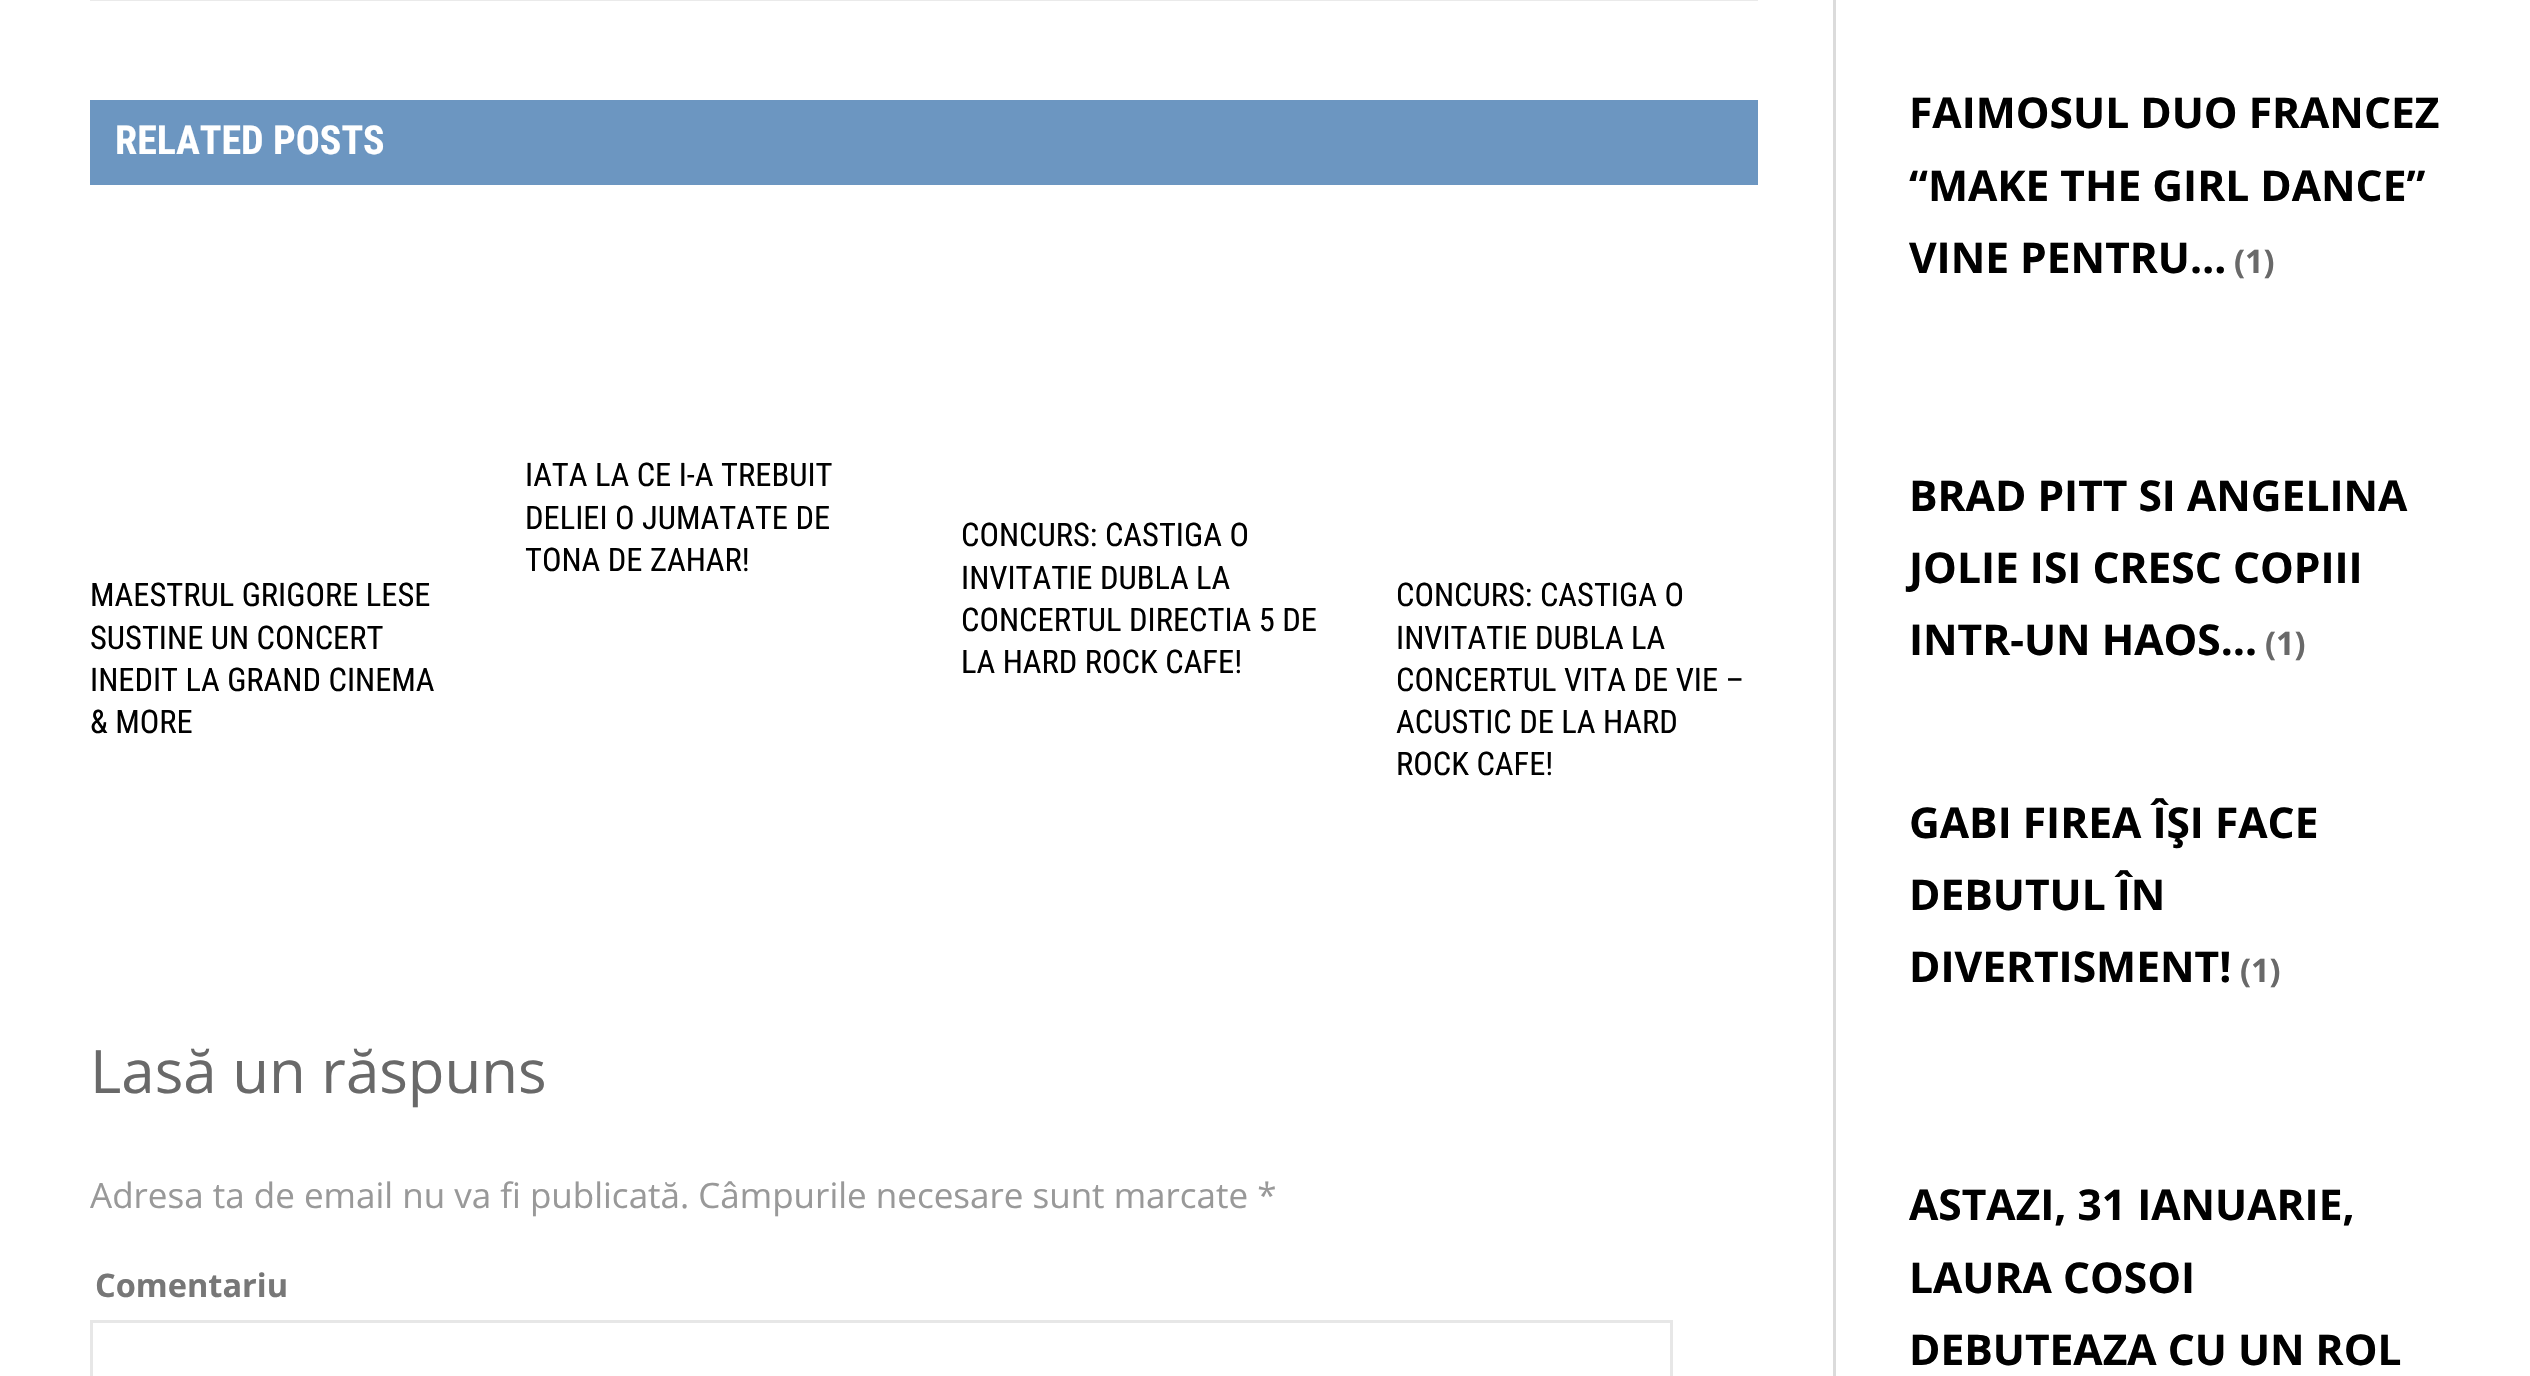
#include "include/core/SkBlurTypes.h"
#include "include/core/SkCanvas.h"
#include "include/core/SkData.h"
#include "include/core/SkFont.h"
#include "include/core/SkFontMgr.h"
#include "include/core/SkImage.h"
#include "include/core/SkMaskFilter.h"
#include "include/core/SkPaint.h"
#include "include/core/SkPathBuilder.h"
#include "include/core/SkTextBlob.h"
#include "include/effects/SkDashPathEffect.h"
#include "include/effects/SkGradientShader.h"
#include "include/utils/SkParsePath.h"

extern sk_sp<SkFontMgr> fontMgr;

static SkFont font(const char* family, int weight, float size, bool italic = false) {
    SkFontStyle style(weight, SkFontStyle::kNormal_Width,
        italic ? SkFontStyle::kItalic_Slant : SkFontStyle::kUpright_Slant);
    SkFont result(fontMgr->matchFamilyStyle(family, style), size);
    result.setSubpixel(true);
    return result;
}

static void drawLabel(SkCanvas* canvas, const char* s, float x, float y, const SkFont& font, SkColor color) {
    SkPaint ink(SkColor4f::FromColor(color));
    ink.setAntiAlias(true);
    canvas->drawString(s, x, y, font, ink);
}

static void fillRect(SkCanvas* canvas, float x, float y, float w, float h, SkColor color) {
    SkPaint ink(SkColor4f::FromColor(color));
    ink.setAntiAlias(true);
    canvas->drawRect(SkRect::MakeXYWH(x, y, w, h), ink);
}

void draw(SkCanvas* canvas) {
    SkPaint paint;
    paint.setAntiAlias(true);
    canvas->clear(0xFFFFFFFF);
    fillRect(canvas, 1833, 0, 3, 1376, 0xFFDBDBDB);
    fillRect(canvas, 90, 0, 1668, 1, 0xFFEAEAEA);
    fillRect(canvas, 90, 100, 1668, 85, 0xFF6C96C1);
    SkFont font1 = font("Roboto Condensed", 700, 40);
    drawLabel(canvas, "RELATED POSTS", 115, 154, font1, 0xFFFFFFFF);
    SkFont font2 = font("Roboto Condensed", 400, 32.5f);
    drawLabel(canvas, "MAESTRUL GRIGORE LESE", 90, 606, font2, 0xFF000000);
    drawLabel(canvas, "SUSTINE UN CONCERT", 90, 649, font2, 0xFF000000);
    drawLabel(canvas, "INEDIT LA GRAND CINEMA", 90, 691, font2, 0xFF000000);
    drawLabel(canvas, "& MORE", 90, 733, font2, 0xFF000000);
    drawLabel(canvas, "IATA LA CE I-A TREBUIT", 525, 486, font2, 0xFF000000);
    drawLabel(canvas, "DELIEI O JUMATATE DE", 525, 529, font2, 0xFF000000);
    drawLabel(canvas, "TONA DE ZAHAR!", 525, 571, font2, 0xFF000000);
    drawLabel(canvas, "CONCURS: CASTIGA O", 961, 546, font2, 0xFF000000);
    drawLabel(canvas, "INVITATIE DUBLA LA", 961, 589, font2, 0xFF000000);
    drawLabel(canvas, "CONCERTUL DIRECTIA 5 DE", 961, 631, font2, 0xFF000000);
    drawLabel(canvas, "LA HARD ROCK CAFE!", 961, 673, font2, 0xFF000000);
    drawLabel(canvas, "CONCURS: CASTIGA O", 1396, 606, font2, 0xFF000000);
    drawLabel(canvas, "INVITATIE DUBLA LA", 1396, 649, font2, 0xFF000000);
    drawLabel(canvas, "CONCERTUL VITA DE VIE –", 1396, 691, font2, 0xFF000000);
    drawLabel(canvas, "ACUSTIC DE LA HARD", 1396, 733, font2, 0xFF000000);
    drawLabel(canvas, "ROCK CAFE!", 1396, 775, font2, 0xFF000000);
    SkFont font3 = font("Open Sans", 400, 60);
    drawLabel(canvas, "Lasă un răspuns", 90, 1093, font3, 0xFF696969);
    SkFont font4 = font("Open Sans", 400, 35);
    drawLabel(canvas, "Adresa ta de email nu va fi publicată. Câmpurile necesare sunt marcate *", 90, 1208, font4, 0xFF999999);
    SkFont font5 = font("Open Sans", 700, 32.5f);
    drawLabel(canvas, "Comentariu", 95, 1297, font5, 0xFF777777);
    paint.setStroke(true);
    paint.setStrokeWidth(3);
    paint.setColor(0xFFE7E7E7);
    canvas->drawRect(SkRect::MakeXYWH(91.5f, 1321.5f, 1580, 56), paint);
    SkFont font6 = font("Open Sans", 700, 42.5f);
    drawLabel(canvas, "FAIMOSUL DUO FRANCEZ", 1909, 128, font6, 0xFF000000);
    drawLabel(canvas, "“MAKE THE GIRL DANCE”", 1909, 201, font6, 0xFF000000);
    drawLabel(canvas, "VINE PENTRU…", 1909, 273, font6, 0xFF000000);
    drawLabel(canvas, "(1)", 2234, 273, font5, 0xFF696969);
    drawLabel(canvas, "BRAD PITT SI ANGELINA", 1909, 511, font6, 0xFF000000);
    drawLabel(canvas, "JOLIE ISI CRESC COPIII", 1909, 583, font6, 0xFF000000);
    drawLabel(canvas, "INTR-UN HAOS…", 1909, 655, font6, 0xFF000000);
    drawLabel(canvas, "(1)", 2265, 655, font5, 0xFF696969);
    drawLabel(canvas, "GABI FIREA ÎŞI FACE", 1909, 838, font6, 0xFF000000);
    drawLabel(canvas, "DEBUTUL ÎN", 1909, 910, font6, 0xFF000000);
    drawLabel(canvas, "DIVERTISMENT!", 1909, 982, font6, 0xFF000000);
    drawLabel(canvas, "(1)", 2240, 982, font5, 0xFF696969);
    drawLabel(canvas, "ASTAZI, 31 IANUARIE,", 1909, 1220, font6, 0xFF000000);
    drawLabel(canvas, "LAURA COSOI", 1909, 1293, font6, 0xFF000000);
    drawLabel(canvas, "DEBUTEAZA CU UN ROL", 1909, 1365, font6, 0xFF000000);
}
